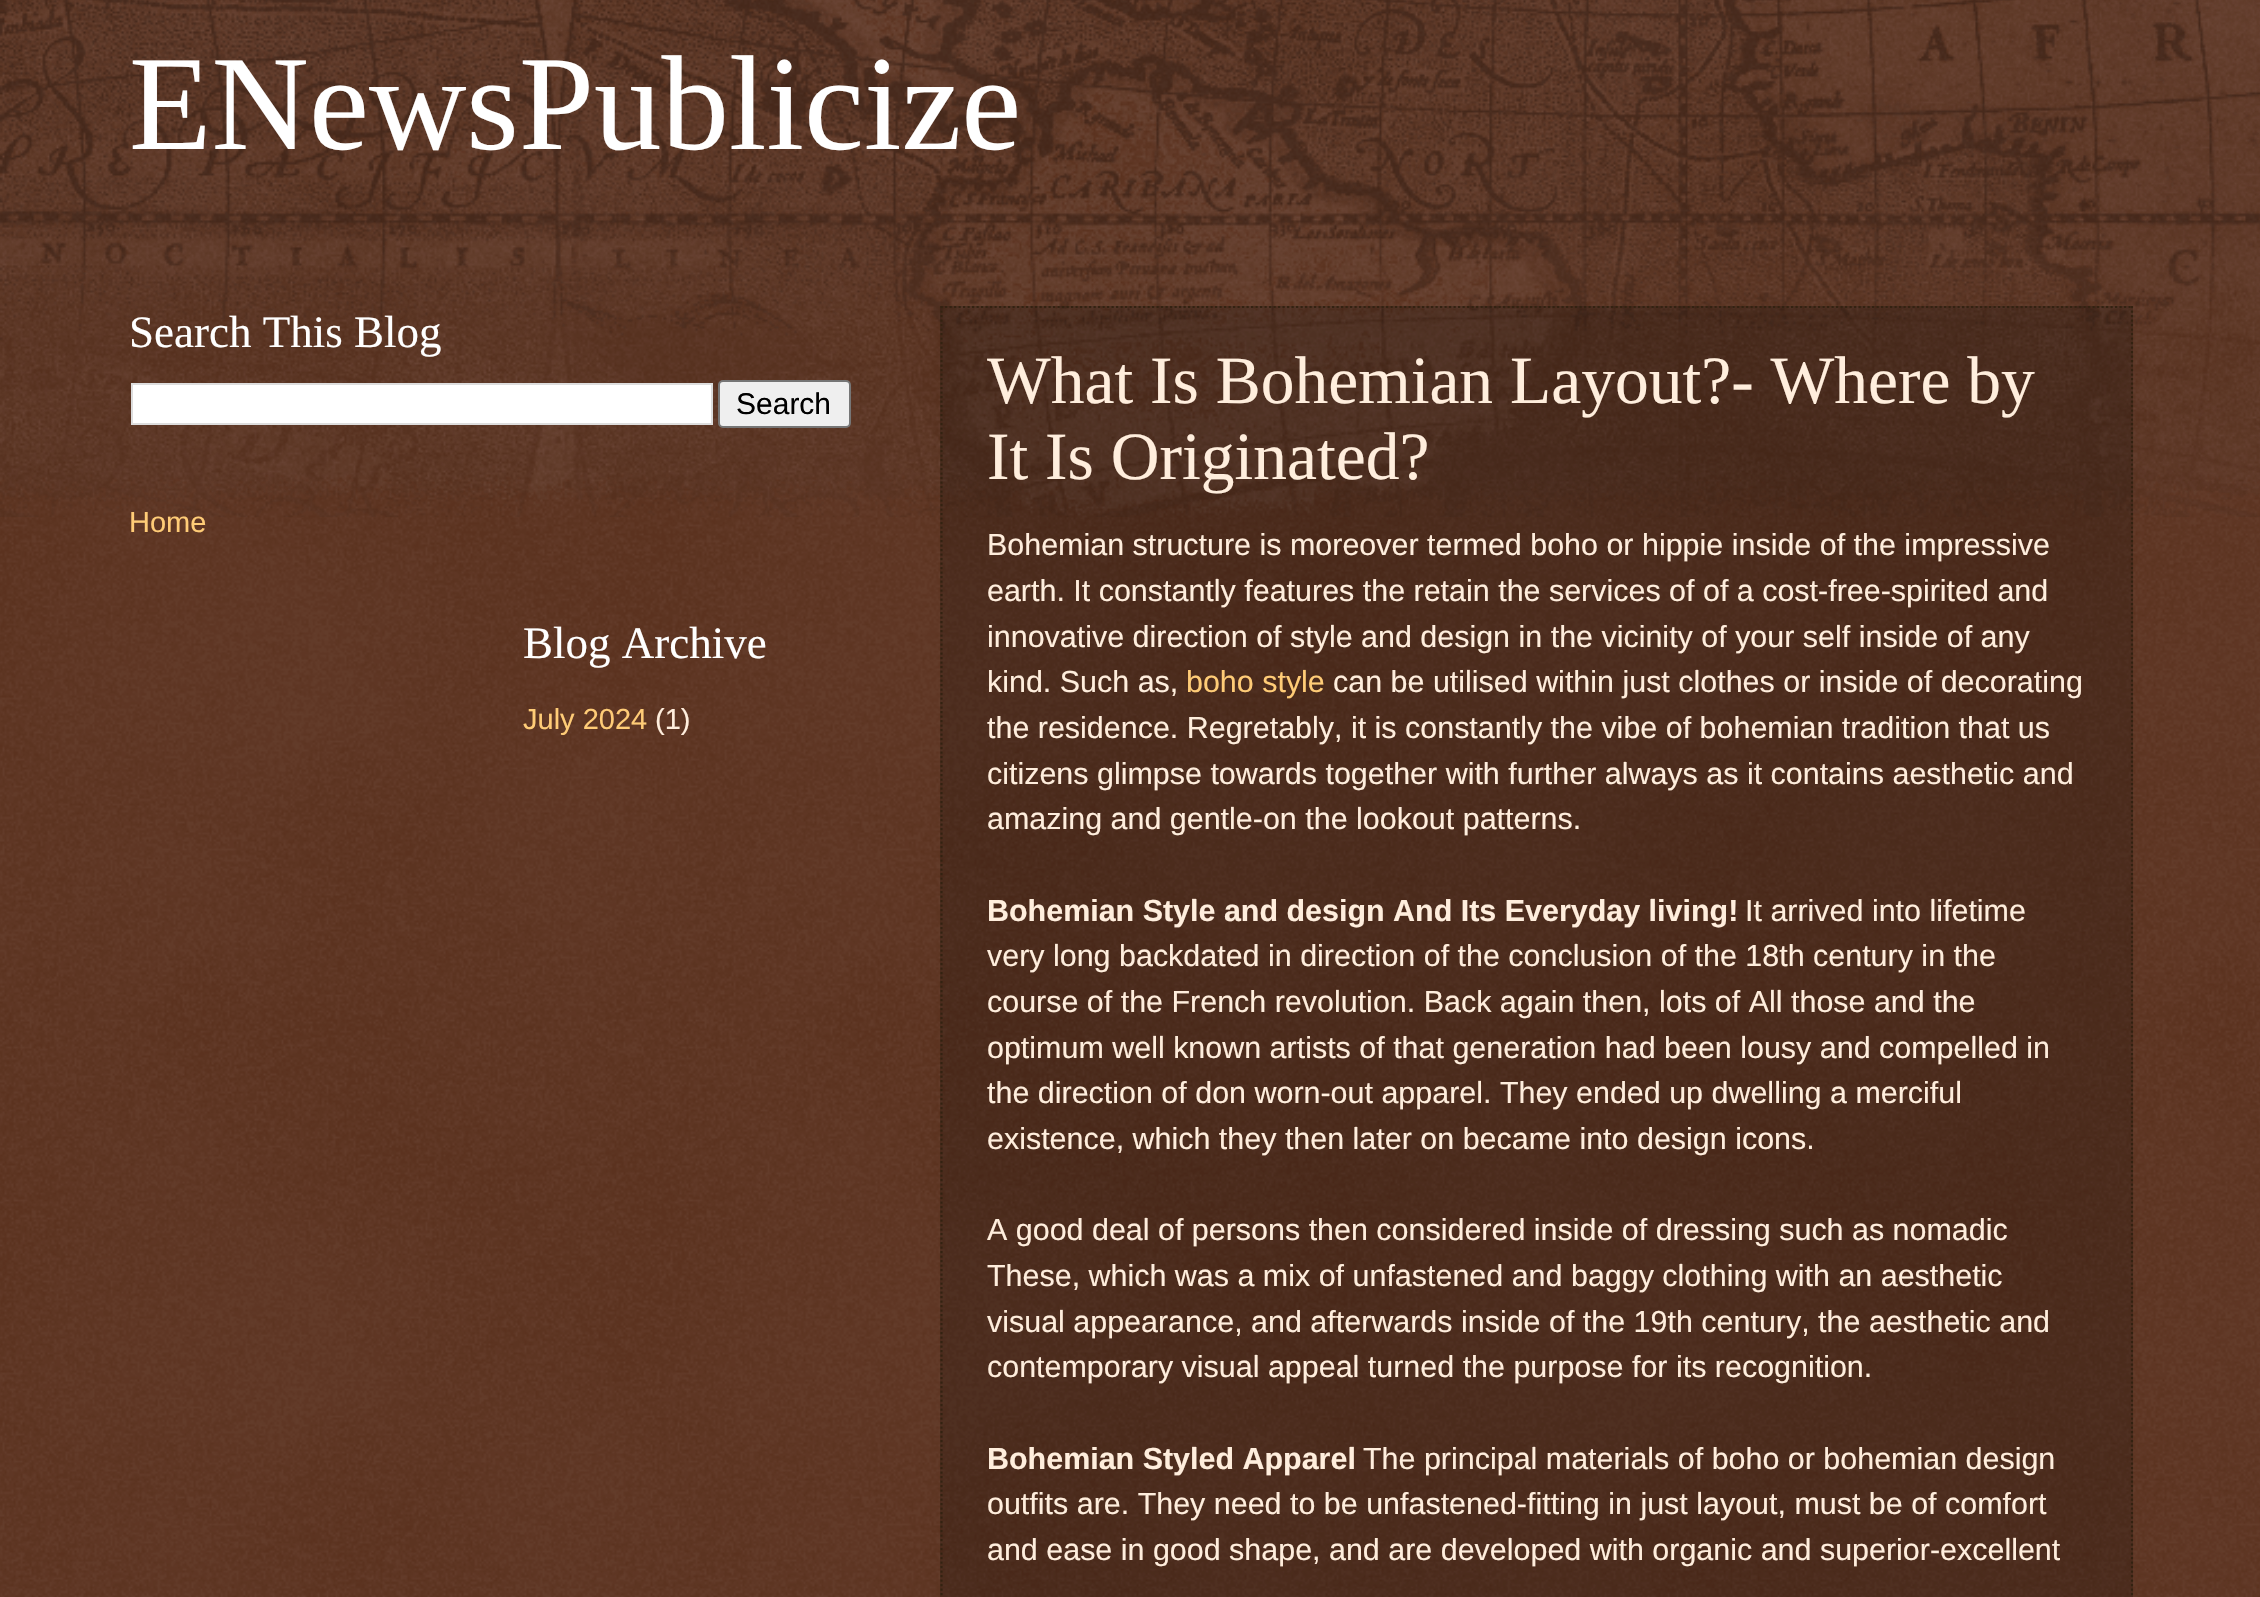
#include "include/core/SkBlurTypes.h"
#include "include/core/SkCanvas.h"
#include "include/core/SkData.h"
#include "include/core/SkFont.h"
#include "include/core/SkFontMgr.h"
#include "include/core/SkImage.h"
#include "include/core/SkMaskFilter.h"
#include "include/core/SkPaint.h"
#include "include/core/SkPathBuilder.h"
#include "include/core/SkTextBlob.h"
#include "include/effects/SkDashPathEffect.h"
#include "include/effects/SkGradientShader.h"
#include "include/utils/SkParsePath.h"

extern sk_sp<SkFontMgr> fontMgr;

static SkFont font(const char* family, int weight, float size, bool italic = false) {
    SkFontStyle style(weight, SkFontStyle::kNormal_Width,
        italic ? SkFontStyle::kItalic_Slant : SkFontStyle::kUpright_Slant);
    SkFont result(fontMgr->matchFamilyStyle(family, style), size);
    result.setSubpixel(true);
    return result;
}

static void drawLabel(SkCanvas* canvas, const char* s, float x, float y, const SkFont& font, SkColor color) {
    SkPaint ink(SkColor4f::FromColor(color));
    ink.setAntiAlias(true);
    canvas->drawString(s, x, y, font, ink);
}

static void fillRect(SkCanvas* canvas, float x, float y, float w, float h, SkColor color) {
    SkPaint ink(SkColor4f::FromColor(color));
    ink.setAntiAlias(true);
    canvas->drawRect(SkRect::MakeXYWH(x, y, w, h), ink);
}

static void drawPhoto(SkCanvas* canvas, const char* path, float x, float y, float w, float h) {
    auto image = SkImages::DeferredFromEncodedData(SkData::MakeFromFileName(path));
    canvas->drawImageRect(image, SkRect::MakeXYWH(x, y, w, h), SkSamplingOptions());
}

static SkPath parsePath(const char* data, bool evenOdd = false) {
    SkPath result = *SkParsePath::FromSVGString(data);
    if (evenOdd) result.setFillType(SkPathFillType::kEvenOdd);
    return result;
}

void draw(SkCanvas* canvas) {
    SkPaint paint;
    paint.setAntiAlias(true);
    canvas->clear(0xFF441500);
    drawPhoto(canvas, "assets/img1.png", 0, 0, 2260, 1597);
    drawPhoto(canvas, "assets/img2.png", 0, 0, 2260, 517);
    SkFont font1 = font("Liberation Serif", 400, 135);
    drawLabel(canvas, "ENewsPublicize", 129, 149, font1, 0xFFFFFFFF);
    SkFont font2 = font("Liberation Serif", 400, 45);
    drawLabel(canvas, "Search This Blog", 129, 347, font2, 0xFFFFFFFF);
    paint.setColor(0xFFFFFFFF);
    canvas->drawRect(SkRect::MakeXYWH(132, 384, 580, 40), paint);
    paint.setStroke(true);
    paint.setStrokeWidth(2);
    paint.setColor(0xFFDDDDDD);
    canvas->drawRect(SkRect::MakeXYWH(132, 384, 580, 40), paint);
    paint.setStroke(false);
    paint.setColor(0xFFEFEFEF);
    canvas->drawRoundRect(SkRect::MakeXYWH(719, 381, 131, 46), 4, 4, paint);
    paint.setStroke(true);
    paint.setColor(0xFF767676);
    canvas->drawRoundRect(SkRect::MakeXYWH(719, 381, 131, 46), 4, 4, paint);
    SkFont font3 = font("Liberation Sans", 400, 30);
    drawLabel(canvas, "Search", 736, 414, font3, 0xFF000000);
    SkFont font4 = font("Liberation Sans", 400, 29);
    drawLabel(canvas, "Home", 129, 532, font4, 0xFFFFCC77);
    drawLabel(canvas, "Blog Archive", 523, 658, font2, 0xFFFFFFFF);
    drawLabel(canvas, "July 2024", 523, 729, font4, 0xFFFFCC77);
    drawLabel(canvas, "(1)", 655, 729, font4, 0xFFFFEEDD);
    fillRect(canvas, 940, 306, 1193, 1291, 0x33000000);
    paint.setStrokeWidth(2.2f);
    paint.setColor(0xFF332211);
    paint.setPathEffect(SkDashPathEffect::Make({{2.25f, 2.25f}}, 0));
    canvas->drawPath(parsePath("M940.5 307H2133"), paint);
    paint.setPathEffect(nullptr);
    paint.setPathEffect(SkDashPathEffect::Make({{2.25f, 2.25f}}, 0));
    canvas->drawPath(parsePath("M2132 306V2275"), paint);
    paint.setPathEffect(nullptr);
    paint.setPathEffect(SkDashPathEffect::Make({{2.25f, 2.25f}}, 0));
    canvas->drawPath(parsePath("M941.5 306V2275"), paint);
    paint.setPathEffect(nullptr);
    SkFont font5 = font("Liberation Serif", 400, 67.5f);
    drawLabel(canvas, "What Is Bohemian Layout?- Where by", 987, 403, font5, 0xFFFFEEDD);
    drawLabel(canvas, "It Is Originated?", 987, 479, font5, 0xFFFFEEDD);
    SkFont font6 = font("Liberation Sans", 400, 30.45f);
    drawLabel(canvas, "Bohemian structure is moreover termed boho or hippie inside of the impressive", 987, 555, font6, 0xFFFFEEDD);
    drawLabel(canvas, "earth. It constantly features the retain the services of of a cost-free-spirited and", 987, 601, font6, 0xFFFFEEDD);
    drawLabel(canvas, "innovative direction of style and design in the vicinity of your self inside of any", 987, 647, font6, 0xFFFFEEDD);
    drawLabel(canvas, "kind. Such as,", 987, 692, font6, 0xFFFFEEDD);
    drawLabel(canvas, "boho style", 1186, 692, font6, 0xFFFFCC77);
    drawLabel(canvas, "can be utilised within just clothes or inside of decorating", 1333, 692, font6, 0xFFFFEEDD);
    drawLabel(canvas, "the residence. Regretably, it is constantly the vibe of bohemian tradition that us", 987, 738, font6, 0xFFFFEEDD);
    drawLabel(canvas, "citizens glimpse towards together with further always as it contains aesthetic and", 987, 784, font6, 0xFFFFEEDD);
    drawLabel(canvas, "amazing and gentle-on the lookout patterns.", 987, 829, font6, 0xFFFFEEDD);
    SkFont font7 = font("Liberation Sans", 700, 30.45f);
    drawLabel(canvas, "Bohemian Style and design And Its Everyday living!", 987, 921, font7, 0xFFFFEEDD);
    drawLabel(canvas, "It arrived into lifetime", 1745, 921, font6, 0xFFFFEEDD);
    drawLabel(canvas, "very long backdated in direction of the conclusion of the 18th century in the", 987, 966, font6, 0xFFFFEEDD);
    drawLabel(canvas, "course of the French revolution. Back again then, lots of All those and the", 987, 1012, font6, 0xFFFFEEDD);
    drawLabel(canvas, "optimum well known artists of that generation had been lousy and compelled in", 987, 1058, font6, 0xFFFFEEDD);
    drawLabel(canvas, "the direction of don worn-out apparel. They ended up dwelling a merciful", 987, 1103, font6, 0xFFFFEEDD);
    drawLabel(canvas, "existence, which they then later on became into design icons.", 987, 1149, font6, 0xFFFFEEDD);
    drawLabel(canvas, "A good deal of persons then considered inside of dressing such as nomadic", 987, 1240, font6, 0xFFFFEEDD);
    drawLabel(canvas, "These, which was a mix of unfastened and baggy clothing with an aesthetic", 987, 1286, font6, 0xFFFFEEDD);
    drawLabel(canvas, "visual appearance, and afterwards inside of the 19th century, the aesthetic and", 987, 1332, font6, 0xFFFFEEDD);
    drawLabel(canvas, "contemporary visual appeal turned the purpose for its recognition.", 987, 1377, font6, 0xFFFFEEDD);
    drawLabel(canvas, "Bohemian Styled Apparel", 987, 1469, font7, 0xFFFFEEDD);
    drawLabel(canvas, "The principal materials of boho or bohemian design", 1363, 1469, font6, 0xFFFFEEDD);
    drawLabel(canvas, "outfits are. They need to be unfastened-fitting in just layout, must be of comfort", 987, 1514, font6, 0xFFFFEEDD);
    drawLabel(canvas, "and ease in good shape, and are developed with organic and superior-excellent", 987, 1560, font6, 0xFFFFEEDD);
}
